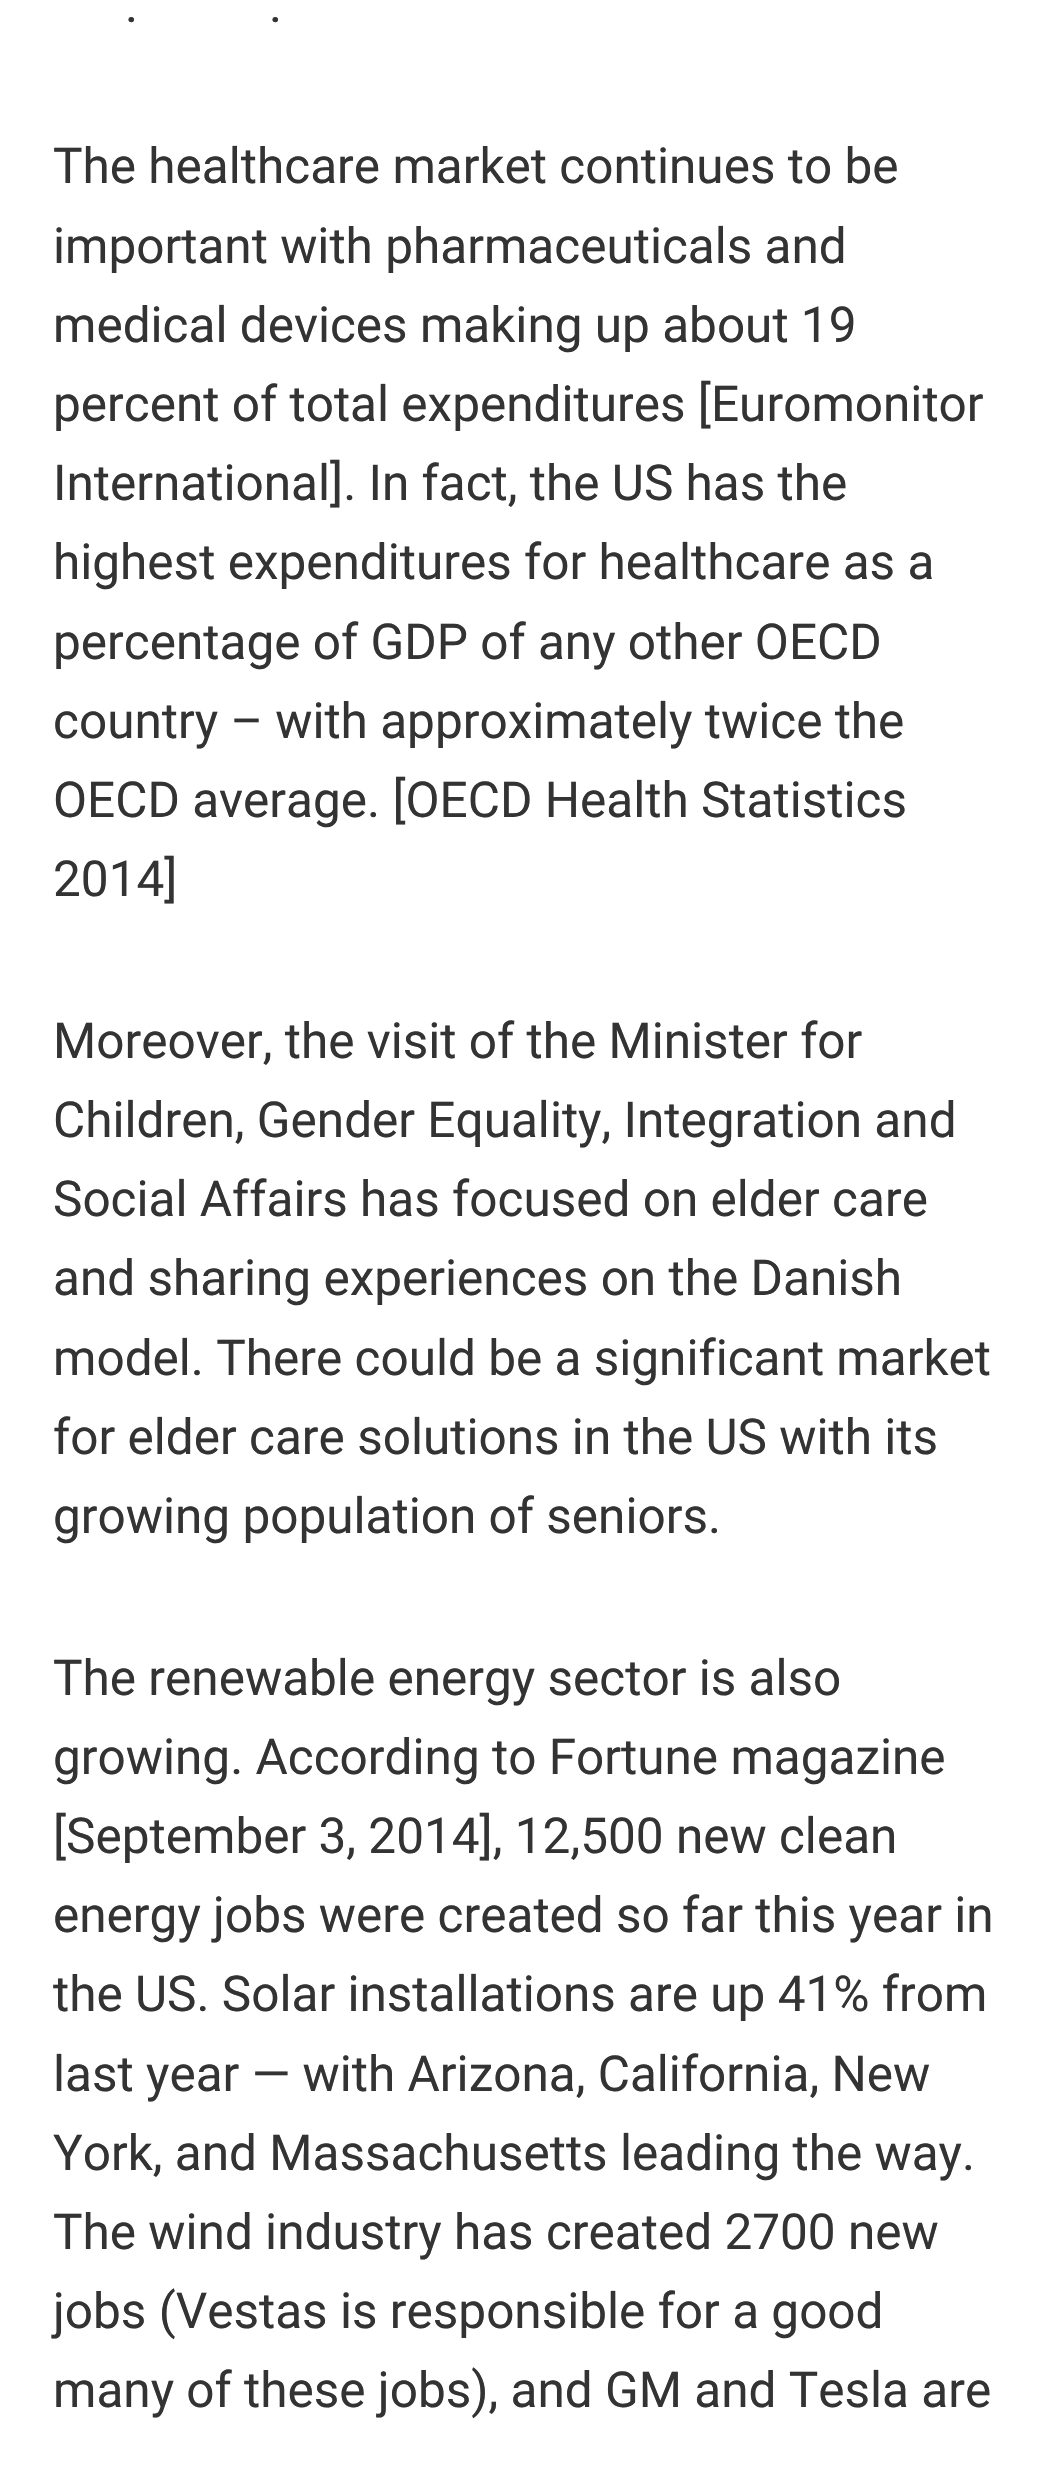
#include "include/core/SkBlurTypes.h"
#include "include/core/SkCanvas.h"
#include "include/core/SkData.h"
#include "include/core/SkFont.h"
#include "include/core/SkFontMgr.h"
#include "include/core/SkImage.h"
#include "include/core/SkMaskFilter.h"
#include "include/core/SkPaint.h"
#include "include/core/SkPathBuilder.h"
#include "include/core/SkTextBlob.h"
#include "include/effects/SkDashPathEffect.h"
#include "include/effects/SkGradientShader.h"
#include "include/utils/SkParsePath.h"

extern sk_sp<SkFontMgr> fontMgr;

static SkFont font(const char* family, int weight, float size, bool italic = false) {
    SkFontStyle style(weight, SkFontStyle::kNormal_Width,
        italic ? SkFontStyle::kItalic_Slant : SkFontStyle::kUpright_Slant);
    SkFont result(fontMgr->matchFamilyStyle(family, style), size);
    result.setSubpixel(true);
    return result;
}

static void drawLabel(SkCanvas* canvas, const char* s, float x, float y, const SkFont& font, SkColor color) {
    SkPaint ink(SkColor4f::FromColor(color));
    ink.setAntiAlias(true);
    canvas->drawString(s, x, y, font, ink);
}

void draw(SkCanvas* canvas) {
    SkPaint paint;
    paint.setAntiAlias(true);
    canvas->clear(0xFFFFFFFF);
    SkFont font1 = font("Roboto", 400, 49.5f);
    drawLabel(canvas, ".", 125, 22, font1, 0xFF333333);
    drawLabel(canvas, ".", 269, 22, font1, 0xFF333333);
    drawLabel(canvas, "The healthcare market continues to be", 53, 183, font1, 0xFF333333);
    drawLabel(canvas, "important with pharmaceuticals and", 53, 263, font1, 0xFF333333);
    drawLabel(canvas, "medical devices making up about 19", 53, 342, font1, 0xFF333333);
    drawLabel(canvas, "percent of total expenditures [Euromonitor", 53, 421, font1, 0xFF333333);
    drawLabel(canvas, "International]. In fact, the US has the", 53, 500, font1, 0xFF333333);
    drawLabel(canvas, "highest expenditures for healthcare as a", 53, 579, font1, 0xFF333333);
    drawLabel(canvas, "percentage of GDP of any other OECD", 53, 659, font1, 0xFF333333);
    drawLabel(canvas, "country – with approximately twice the", 53, 738, font1, 0xFF333333);
    drawLabel(canvas, "OECD average. [OECD Health Statistics", 53, 817, font1, 0xFF333333);
    drawLabel(canvas, "2014]", 53, 896, font1, 0xFF333333);
    drawLabel(canvas, "Moreover, the visit of the Minister for", 53, 1058, font1, 0xFF333333);
    drawLabel(canvas, "Children, Gender Equality, Integration and", 53, 1137, font1, 0xFF333333);
    drawLabel(canvas, "Social Affairs has focused on elder care", 53, 1216, font1, 0xFF333333);
    drawLabel(canvas, "and sharing experiences on the Danish", 53, 1295, font1, 0xFF333333);
    drawLabel(canvas, "model. There could be a significant market", 53, 1375, font1, 0xFF333333);
    drawLabel(canvas, "for elder care solutions in the US with its", 53, 1454, font1, 0xFF333333);
    drawLabel(canvas, "growing population of seniors.", 53, 1533, font1, 0xFF333333);
    drawLabel(canvas, "The renewable energy sector is also", 53, 1695, font1, 0xFF333333);
    drawLabel(canvas, "growing. According to Fortune magazine", 53, 1774, font1, 0xFF333333);
    drawLabel(canvas, "[September 3, 2014], 12,500 new clean", 53, 1853, font1, 0xFF333333);
    drawLabel(canvas, "energy jobs were created so far this year in", 53, 1932, font1, 0xFF333333);
    drawLabel(canvas, "the US. Solar installations are up 41% from", 53, 2011, font1, 0xFF333333);
    drawLabel(canvas, "last year — with Arizona, California, New", 53, 2091, font1, 0xFF333333);
    drawLabel(canvas, "York, and Massachusetts leading the way.", 53, 2170, font1, 0xFF333333);
    drawLabel(canvas, "The wind industry has created 2700 new", 53, 2249, font1, 0xFF333333);
    drawLabel(canvas, "jobs (Vestas is responsible for a good", 53, 2328, font1, 0xFF333333);
    drawLabel(canvas, "many of these jobs), and GM and Tesla are", 53, 2407, font1, 0xFF333333);
}
